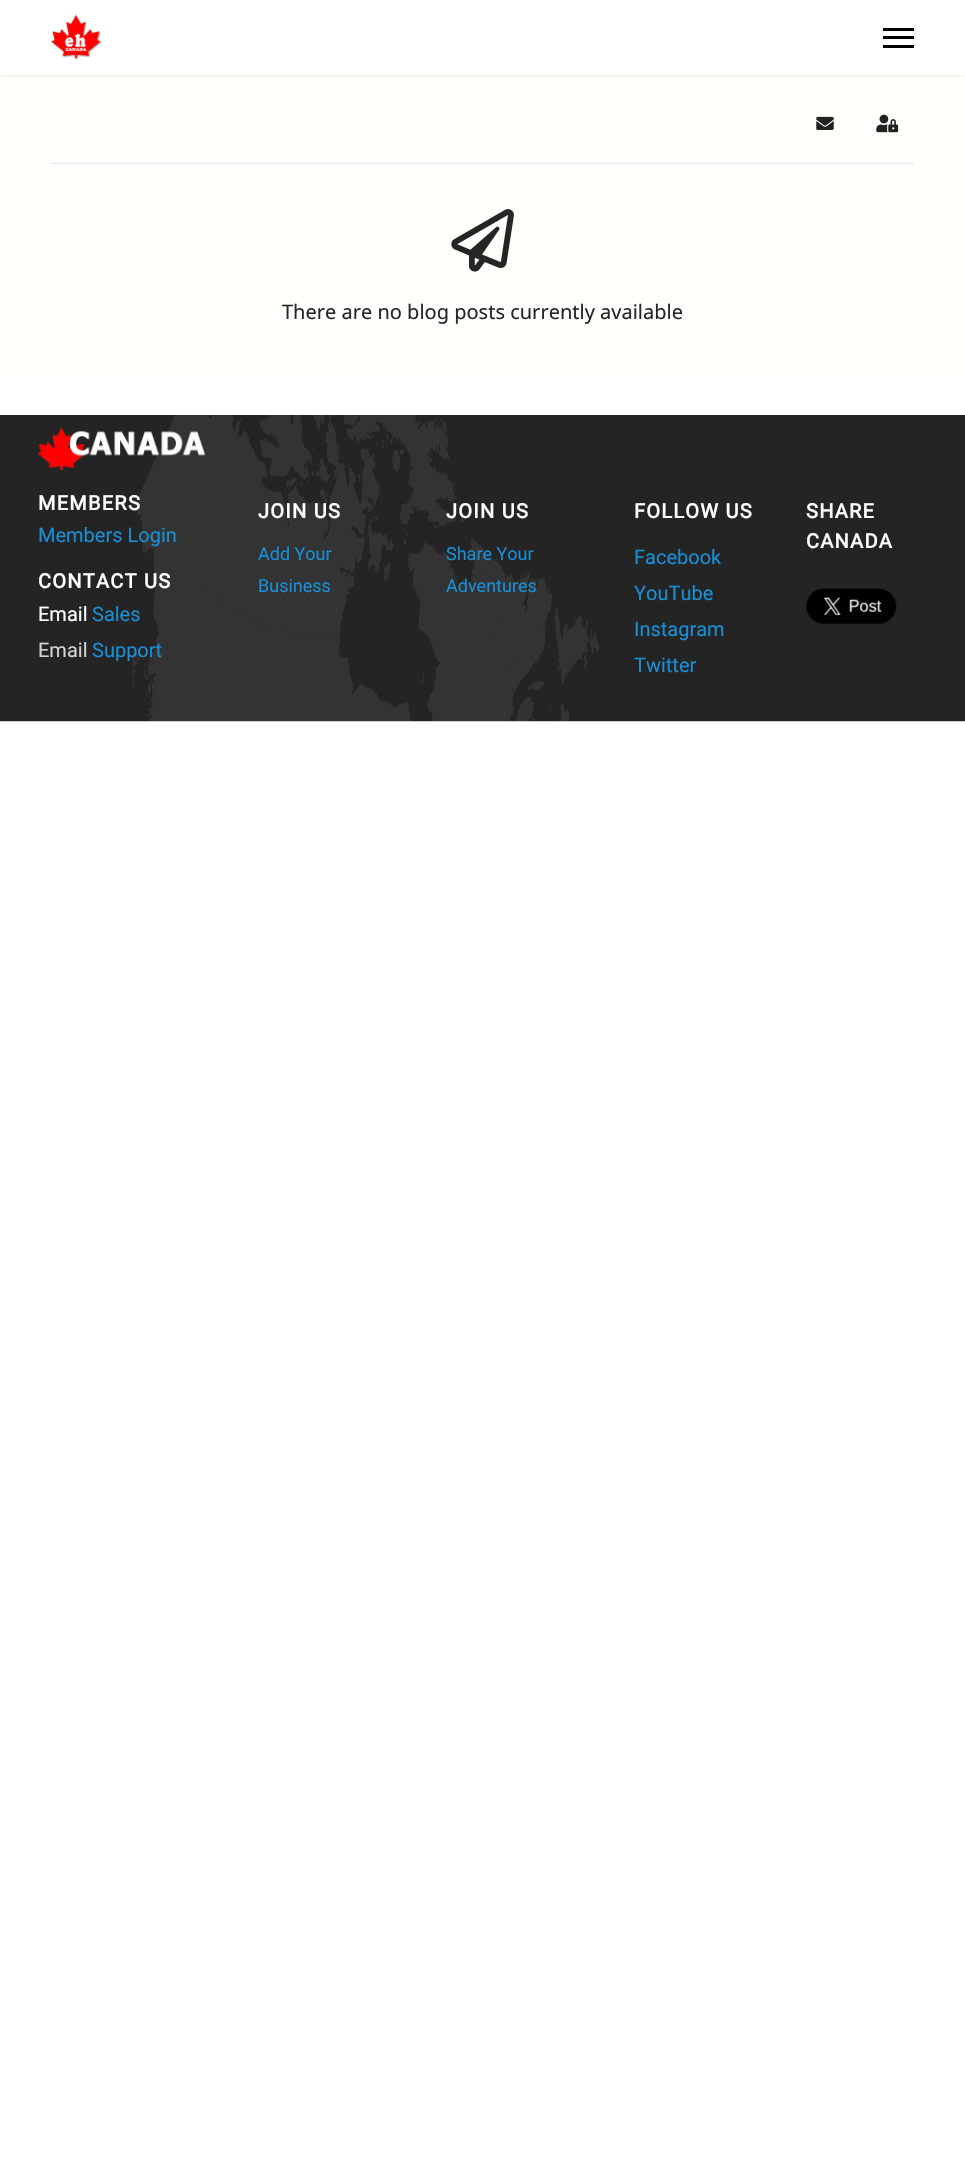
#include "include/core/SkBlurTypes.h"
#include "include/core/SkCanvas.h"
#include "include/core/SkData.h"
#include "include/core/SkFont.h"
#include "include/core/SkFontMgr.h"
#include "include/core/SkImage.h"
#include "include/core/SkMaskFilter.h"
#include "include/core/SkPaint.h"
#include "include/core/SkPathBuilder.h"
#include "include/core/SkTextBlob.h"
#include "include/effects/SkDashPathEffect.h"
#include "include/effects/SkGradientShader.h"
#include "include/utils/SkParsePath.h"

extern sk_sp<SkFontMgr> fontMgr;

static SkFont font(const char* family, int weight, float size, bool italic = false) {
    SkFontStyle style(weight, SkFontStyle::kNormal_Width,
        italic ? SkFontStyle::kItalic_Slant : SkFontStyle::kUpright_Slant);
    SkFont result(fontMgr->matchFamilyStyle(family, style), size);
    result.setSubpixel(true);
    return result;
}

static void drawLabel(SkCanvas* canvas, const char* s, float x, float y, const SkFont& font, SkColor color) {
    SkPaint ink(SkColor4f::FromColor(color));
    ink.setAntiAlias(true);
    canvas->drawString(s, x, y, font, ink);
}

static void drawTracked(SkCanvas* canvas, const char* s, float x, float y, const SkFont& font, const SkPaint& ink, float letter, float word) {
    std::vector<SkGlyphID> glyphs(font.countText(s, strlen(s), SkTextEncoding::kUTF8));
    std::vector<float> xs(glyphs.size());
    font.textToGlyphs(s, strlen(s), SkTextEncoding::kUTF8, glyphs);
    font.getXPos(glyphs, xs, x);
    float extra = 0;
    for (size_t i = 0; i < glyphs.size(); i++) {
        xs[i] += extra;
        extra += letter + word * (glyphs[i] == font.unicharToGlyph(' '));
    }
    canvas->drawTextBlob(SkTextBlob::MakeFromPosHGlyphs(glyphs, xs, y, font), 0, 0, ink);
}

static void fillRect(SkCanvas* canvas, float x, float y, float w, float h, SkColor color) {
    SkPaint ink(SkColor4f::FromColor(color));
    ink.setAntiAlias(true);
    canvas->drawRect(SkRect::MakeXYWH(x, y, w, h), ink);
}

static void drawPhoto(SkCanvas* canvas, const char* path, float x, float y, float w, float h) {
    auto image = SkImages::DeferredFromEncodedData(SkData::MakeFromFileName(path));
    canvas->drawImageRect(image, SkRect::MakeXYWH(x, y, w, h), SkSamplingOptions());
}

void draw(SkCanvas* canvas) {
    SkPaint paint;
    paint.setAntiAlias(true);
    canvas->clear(0xFFFFFFFF);
    fillRect(canvas, 0, 75, 965, 301, 0xFFFFFFFC);
    canvas->save();
    canvas->clipRect(SkRect::MakeXYWH(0, 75, 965, 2));
    paint.setColor(0x1A000000);
    paint.setMaskFilter(SkMaskFilter::MakeBlur(kNormal_SkBlurStyle, 2.5f));
    canvas->drawRect(SkRect::MakeXYWH(0, 0, 965, 75), paint);
    paint.setMaskFilter(nullptr);
    canvas->restore();
    drawPhoto(canvas, "assets/img1.png", 51, 15, 51, 45);
    fillRect(canvas, 883, 28, 31, 3, 0xFF000000);
    fillRect(canvas, 883, 36, 31, 3, 0xFF000000);
    fillRect(canvas, 883, 45, 31, 3, 0xFF000000);
    drawPhoto(canvas, "assets/img2.png", 816, 116, 18, 14);
    drawPhoto(canvas, "assets/img3.png", 876, 114, 23, 19);
    fillRect(canvas, 51, 163, 863, 1, 0xFFE5E5E5);
    drawPhoto(canvas, "assets/img4.png", 451, 209, 63, 63);
    SkFont font1 = font("Noto Sans", 400, 20);
    drawLabel(canvas, "There are no blog posts currently available", 282, 319, font1, 0xFF252525);
    drawPhoto(canvas, "assets/img5.png", 0, 415, 965, 307);
    drawPhoto(canvas, "assets/img6.png", 37, 427, 169, 43);
    SkFont font2 = font("Roboto", 700, 20);
    paint.setColor(0xFFFFFFFF);
    drawTracked(canvas, "MEMBERS", 38, 510, font2, paint, 1.25f, 0);
    SkFont font3 = font("Roboto", 400, 20);
    drawLabel(canvas, "Members Login", 38, 542, font3, 0xFF1890D7);
    drawTracked(canvas, "CONTACT US", 38, 588, font2, paint, 1.25f, 0);
    drawLabel(canvas, "Email", 38, 621, font3, 0xFFFFFFFF);
    drawLabel(canvas, "Sales", 92, 621, font3, 0xFF1890D7);
    drawLabel(canvas, "Email", 38, 657, font3, 0xFFD3D3D3);
    drawLabel(canvas, "Support", 92, 657, font3, 0xFF1890D7);
    drawTracked(canvas, "JOIN US", 258, 518, font2, paint, 1.25f, 0);
    SkFont font4 = font("Roboto", 400, 18);
    drawLabel(canvas, "Add Your", 258, 560, font4, 0xFF1890D7);
    drawLabel(canvas, "Business", 258, 592, font4, 0xFF1890D7);
    drawTracked(canvas, "JOIN US", 446, 518, font2, paint, 1.25f, 0);
    drawLabel(canvas, "Share Your", 446, 560, font4, 0xFF1890D7);
    drawLabel(canvas, "Adventures", 446, 592, font4, 0xFF1890D7);
    drawTracked(canvas, "FOLLOW US", 634, 518, font2, paint, 1.25f, 0);
    drawLabel(canvas, "Facebook", 634, 564, font3, 0xFF1890D7);
    drawLabel(canvas, "YouTube", 634, 600, font3, 0xFF1890D7);
    drawLabel(canvas, "Instagram", 634, 636, font3, 0xFF1890D7);
    drawLabel(canvas, "Twitter", 634, 672, font3, 0xFF1890D7);
    drawTracked(canvas, "SHARE", 806, 518, font2, paint, 1.25f, 0);
    drawTracked(canvas, "CANADA", 806, 548, font2, paint, 1.25f, 0);
    drawPhoto(canvas, "assets/img7.png", 806, 588, 91, 36);
}
